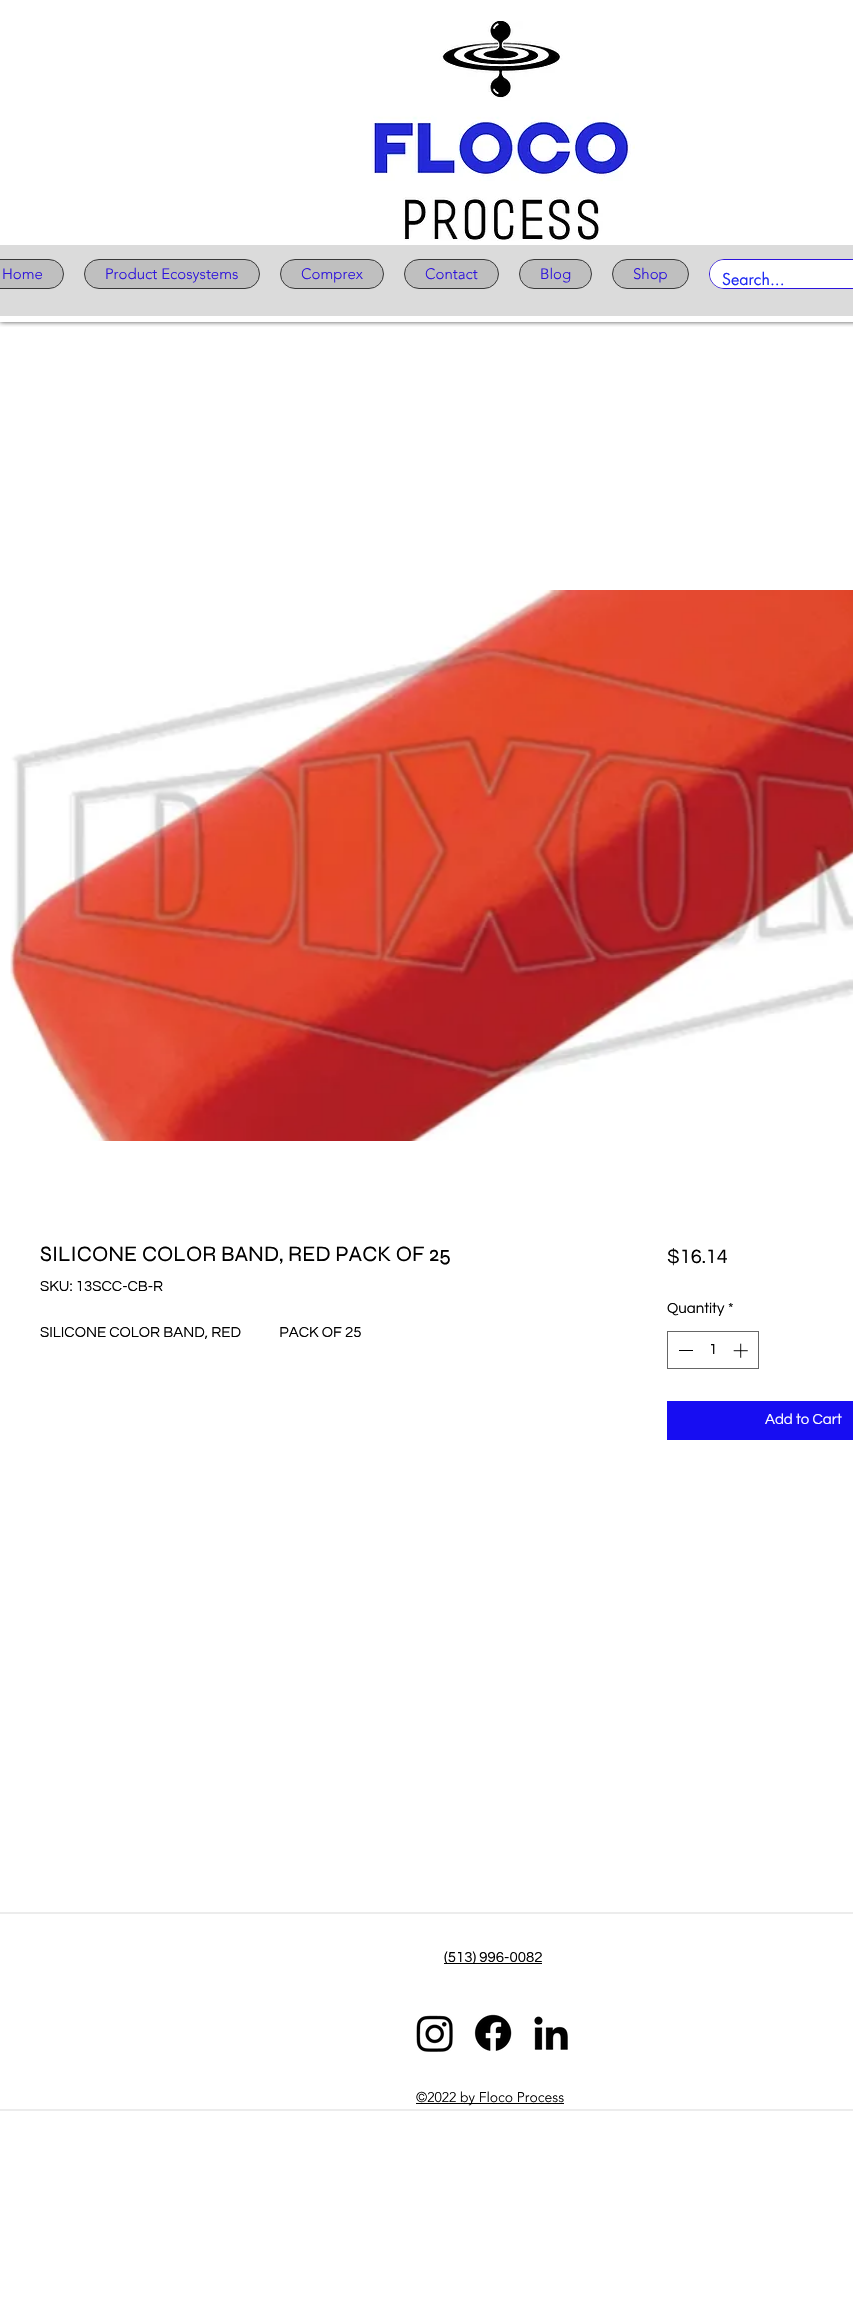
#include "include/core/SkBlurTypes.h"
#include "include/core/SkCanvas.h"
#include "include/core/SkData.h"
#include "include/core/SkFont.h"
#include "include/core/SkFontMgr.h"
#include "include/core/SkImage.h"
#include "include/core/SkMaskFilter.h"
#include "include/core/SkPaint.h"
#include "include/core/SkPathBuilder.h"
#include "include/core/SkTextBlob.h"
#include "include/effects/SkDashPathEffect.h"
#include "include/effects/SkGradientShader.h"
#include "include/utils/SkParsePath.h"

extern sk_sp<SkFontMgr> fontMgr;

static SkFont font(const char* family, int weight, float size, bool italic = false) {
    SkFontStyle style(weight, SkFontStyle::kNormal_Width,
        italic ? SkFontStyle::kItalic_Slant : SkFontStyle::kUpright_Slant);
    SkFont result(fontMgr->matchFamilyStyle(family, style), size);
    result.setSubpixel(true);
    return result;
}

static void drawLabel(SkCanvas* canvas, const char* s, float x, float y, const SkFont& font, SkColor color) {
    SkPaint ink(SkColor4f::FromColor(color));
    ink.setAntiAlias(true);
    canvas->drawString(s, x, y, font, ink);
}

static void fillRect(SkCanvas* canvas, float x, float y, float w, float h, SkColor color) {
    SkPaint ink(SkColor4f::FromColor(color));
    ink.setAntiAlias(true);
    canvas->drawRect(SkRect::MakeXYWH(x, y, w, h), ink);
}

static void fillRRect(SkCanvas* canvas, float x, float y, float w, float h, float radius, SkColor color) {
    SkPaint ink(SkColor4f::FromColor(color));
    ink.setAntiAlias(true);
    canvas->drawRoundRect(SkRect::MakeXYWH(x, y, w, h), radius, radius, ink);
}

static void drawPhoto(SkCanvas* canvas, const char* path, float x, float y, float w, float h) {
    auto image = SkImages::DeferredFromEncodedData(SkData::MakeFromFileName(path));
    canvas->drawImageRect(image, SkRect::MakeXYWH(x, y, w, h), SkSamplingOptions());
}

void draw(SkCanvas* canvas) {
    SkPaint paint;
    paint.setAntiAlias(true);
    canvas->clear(0xFFFFFFFF);
    canvas->save();
    canvas->clipRect(SkRect::MakeXYWH(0, 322, 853, 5));
    paint.setColor(0xB3000000);
    paint.setMaskFilter(SkMaskFilter::MakeBlur(kNormal_SkBlurStyle, 2.5f));
    canvas->drawRect(SkRect::MakeXYWH(0, 0, 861, 322), paint);
    paint.setMaskFilter(nullptr);
    canvas->restore();
    drawPhoto(canvas, "assets/img1.png", 371, 21, 264, 220);
    fillRect(canvas, 0, 245, 853, 71, 0xFFDBDBDB);
    paint.setColor(0xFFBFBFBF);
    canvas->drawRoundRect(SkRect::MakeXYWH(-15.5f, 259.5f, 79, 29), 14.5f, 14.5f, paint);
    paint.setStroke(true);
    paint.setStrokeWidth(1);
    paint.setColor(0xFF383838);
    canvas->drawRoundRect(SkRect::MakeXYWH(-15.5f, 259.5f, 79, 29), 14.5f, 14.5f, paint);
    SkFont font1 = font("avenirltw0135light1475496", 300, 15);
    drawLabel(canvas, "Home", 2, 279, font1, 0xFF2D13DC);
    paint.setStroke(false);
    paint.setColor(0xFFBFBFBF);
    canvas->drawRoundRect(SkRect::MakeXYWH(84.5f, 259.5f, 175, 29), 14.5f, 14.5f, paint);
    paint.setStroke(true);
    paint.setColor(0xFF383838);
    canvas->drawRoundRect(SkRect::MakeXYWH(84.5f, 259.5f, 175, 29), 14.5f, 14.5f, paint);
    drawLabel(canvas, "Product Ecosystems", 105, 279, font1, 0xFF2D13DC);
    paint.setStroke(false);
    paint.setColor(0xFFBFBFBF);
    canvas->drawRoundRect(SkRect::MakeXYWH(280.5f, 259.5f, 103, 29), 14.5f, 14.5f, paint);
    paint.setStroke(true);
    paint.setColor(0xFF383838);
    canvas->drawRoundRect(SkRect::MakeXYWH(280.5f, 259.5f, 103, 29), 14.5f, 14.5f, paint);
    drawLabel(canvas, "Comprex", 301, 279, font1, 0xFF2D13DC);
    paint.setStroke(false);
    paint.setColor(0xFFBFBFBF);
    canvas->drawRoundRect(SkRect::MakeXYWH(404.5f, 259.5f, 94, 29), 14.5f, 14.5f, paint);
    paint.setStroke(true);
    paint.setColor(0xFF383838);
    canvas->drawRoundRect(SkRect::MakeXYWH(404.5f, 259.5f, 94, 29), 14.5f, 14.5f, paint);
    drawLabel(canvas, "Contact", 425, 279, font1, 0xFF2D13DC);
    paint.setStroke(false);
    paint.setColor(0xFFBFBFBF);
    canvas->drawRoundRect(SkRect::MakeXYWH(519.5f, 259.5f, 72, 29), 14.5f, 14.5f, paint);
    paint.setStroke(true);
    paint.setColor(0xFF383838);
    canvas->drawRoundRect(SkRect::MakeXYWH(519.5f, 259.5f, 72, 29), 14.5f, 14.5f, paint);
    drawLabel(canvas, "Blog", 540, 279, font1, 0xFF2D13DC);
    paint.setStroke(false);
    paint.setColor(0xFFBFBFBF);
    canvas->drawRoundRect(SkRect::MakeXYWH(612.5f, 259.5f, 76, 29), 14.5f, 14.5f, paint);
    paint.setStroke(true);
    paint.setColor(0xFF383838);
    canvas->drawRoundRect(SkRect::MakeXYWH(612.5f, 259.5f, 76, 29), 14.5f, 14.5f, paint);
    drawLabel(canvas, "Shop", 633, 279, font1, 0xFF2D13DC);
    paint.setColor(0xFF2D13DC);
    canvas->drawRoundRect(SkRect::MakeXYWH(709.5f, 259.5f, 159, 29), 14.5f, 14.5f, paint);
    fillRRect(canvas, 710, 260, 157, 28, 14, 0xFFFFFFFF);
    SkFont font2 = font("futura", 400, 16);
    drawLabel(canvas, "Search...", 722, 285, font2, 0xFF1F2BF3);
    drawPhoto(canvas, "assets/img2.png", 10, 590, 843, 551);
    SkFont font3 = font("Syne", 400, 22);
    drawLabel(canvas, "SILICONE COLOR BAND, RED PACK OF 25", 40, 1261, font3, 0xFF000000);
    SkFont font4 = font("Questrial", 400, 15);
    drawLabel(canvas, "SKU: 13SCC-CB-R", 40, 1291, font4, 0xFF000000);
    drawLabel(canvas, "SILICONE COLOR BAND, RED            PACK OF 25", 40, 1337, font4, 0xFF000000);
    SkFont font5 = font("Questrial", 400, 20);
    drawLabel(canvas, "$16.14", 667, 1263, font5, 0xFF000000);
    drawLabel(canvas, "Quantity", 667, 1313, font4, 0xFF000000);
    drawLabel(canvas, "*", 728, 1313, font4, 0xFF000000);
    paint.setColor(0xFF666666);
    canvas->drawRect(SkRect::MakeXYWH(667.5f, 1331.5f, 91, 37), paint);
    fillRect(canvas, 679, 1350, 14, 1, 0xFF000000);
    drawLabel(canvas, "1", 709, 1354, font4, 0xFF000000);
    drawPhoto(canvas, "assets/img3.png", 733, 1343, 15, 15);
    fillRect(canvas, 667, 1401, 186, 39, 0xFF170DF2);
    drawLabel(canvas, "Add to Cart", 765, 1424, font4, 0xFFFFFFFF);
    fillRect(canvas, 0, 1912, 853, 2, 0xFFECECEC);
    fillRect(canvas, 0, 2109, 853, 2, 0xFFECECEC);
    fillRect(canvas, 444, 1963, 98, 1, 0xFF000000);
    drawLabel(canvas, "(513) 996-0082", 444, 1962, font4, 0xFF000000);
    drawPhoto(canvas, "assets/img4.png", 416, 2015, 37, 37);
    drawPhoto(canvas, "assets/img5.png", 474, 2014, 38, 37);
    drawPhoto(canvas, "assets/img6.png", 534, 2016, 34, 34);
    fillRect(canvas, 416, 2103, 148, 1, 0xFF000000);
    SkFont font6 = font("avenirltw0135light1475496", 300, 14);
    drawLabel(canvas, "©2022 by Floco Process", 416, 2102, font6, 0xFF000000);
}
